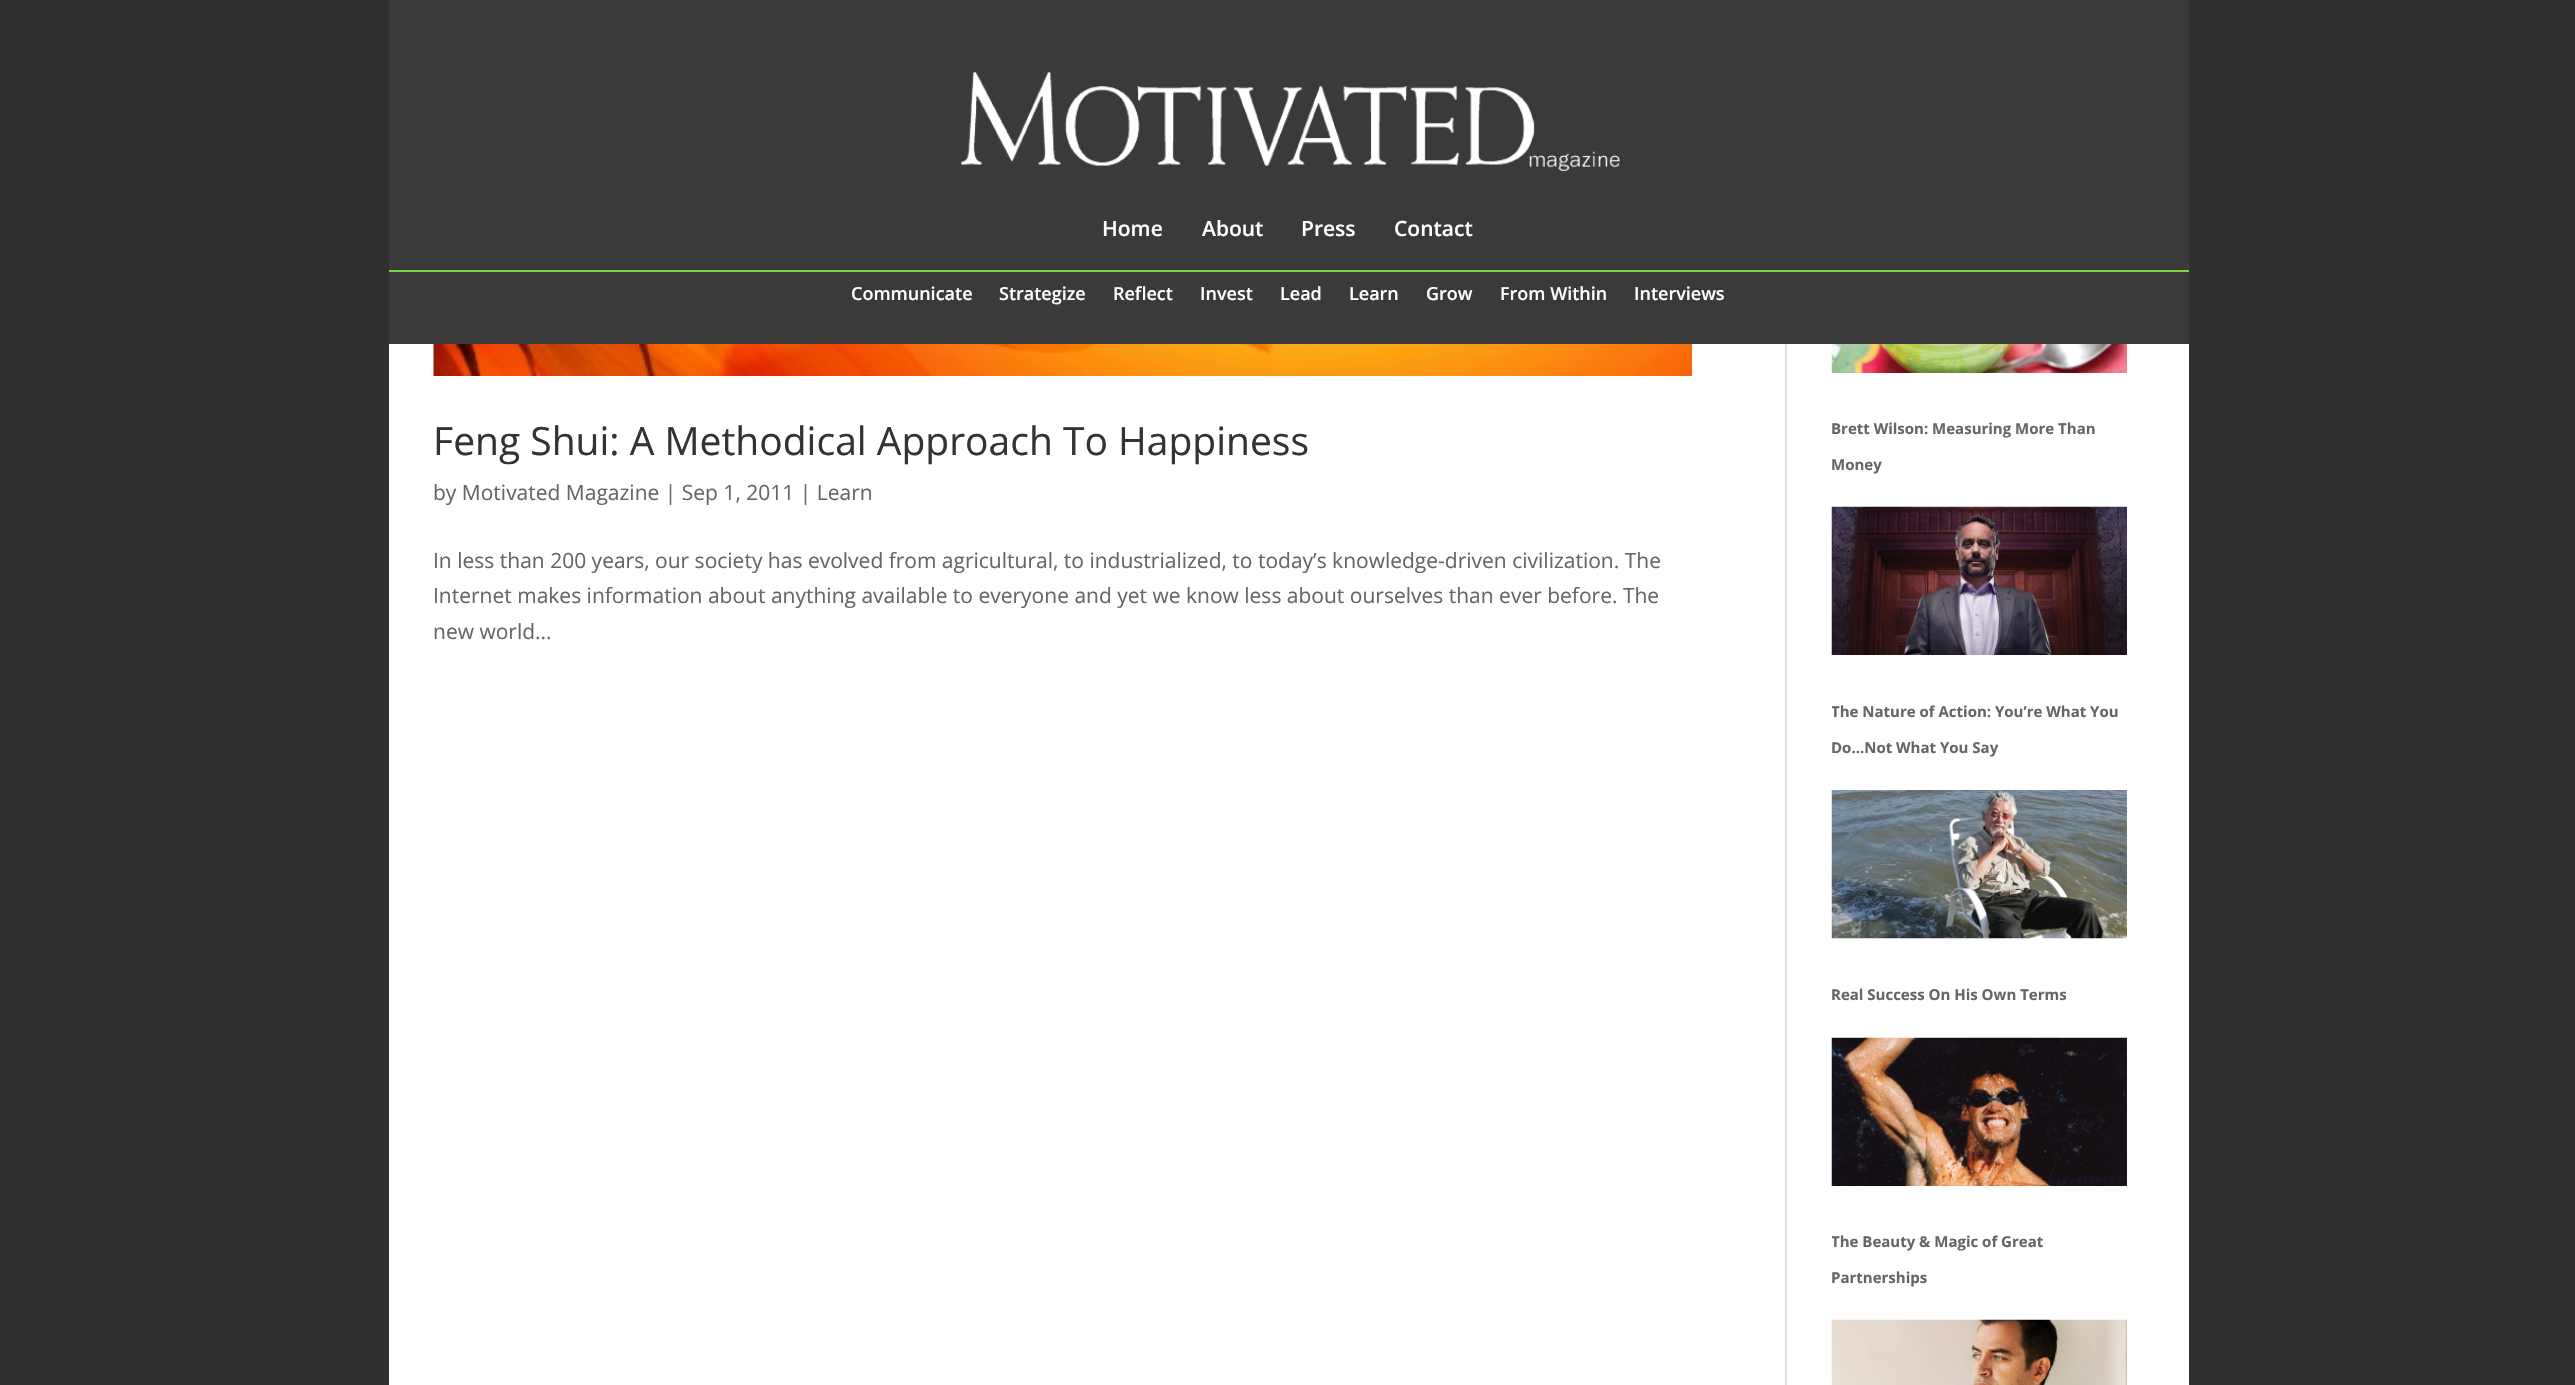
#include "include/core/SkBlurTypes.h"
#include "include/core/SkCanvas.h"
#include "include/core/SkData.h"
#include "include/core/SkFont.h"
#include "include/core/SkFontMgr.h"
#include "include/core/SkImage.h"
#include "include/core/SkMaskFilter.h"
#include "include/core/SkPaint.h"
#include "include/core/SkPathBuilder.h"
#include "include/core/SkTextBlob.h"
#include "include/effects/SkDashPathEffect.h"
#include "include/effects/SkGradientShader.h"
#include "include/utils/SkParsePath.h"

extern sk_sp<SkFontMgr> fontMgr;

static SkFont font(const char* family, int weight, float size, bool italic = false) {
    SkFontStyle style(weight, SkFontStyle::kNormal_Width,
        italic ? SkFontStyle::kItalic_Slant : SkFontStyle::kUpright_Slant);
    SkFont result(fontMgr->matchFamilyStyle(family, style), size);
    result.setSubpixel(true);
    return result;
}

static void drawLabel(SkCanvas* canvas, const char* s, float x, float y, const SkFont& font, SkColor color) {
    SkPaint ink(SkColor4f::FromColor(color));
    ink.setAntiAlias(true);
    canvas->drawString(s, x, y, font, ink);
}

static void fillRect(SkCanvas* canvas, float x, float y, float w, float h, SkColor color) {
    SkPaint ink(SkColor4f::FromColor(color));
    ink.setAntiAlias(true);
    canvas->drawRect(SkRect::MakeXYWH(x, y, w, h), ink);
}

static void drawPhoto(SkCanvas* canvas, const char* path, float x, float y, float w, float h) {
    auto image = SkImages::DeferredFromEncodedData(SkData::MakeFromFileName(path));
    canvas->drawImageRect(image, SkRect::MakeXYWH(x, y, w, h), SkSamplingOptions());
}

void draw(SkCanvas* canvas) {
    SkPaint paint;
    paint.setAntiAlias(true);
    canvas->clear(0xFF303030);
    fillRect(canvas, 389, 0, 1800, 270, 0xFF3A3A3A);
    drawPhoto(canvas, "assets/img1.png", 961, 72, 659, 99);
    SkFont font1 = font("Open Sans", 600, 21);
    drawLabel(canvas, "Home", 1102, 236, font1, 0xFFFFFFFF);
    drawLabel(canvas, "About", 1202, 236, font1, 0xFFFFFFFF);
    drawLabel(canvas, "Press", 1301, 236, font1, 0xFFFFFFFF);
    drawLabel(canvas, "Contact", 1394, 236, font1, 0xFFFFFFFF);
    fillRect(canvas, 389, 272, 1800, 72, 0xFF3A3A3A);
    fillRect(canvas, 389, 270, 1800, 2, 0xFF81D742);
    SkFont font2 = font("Open Sans", 600, 18);
    drawLabel(canvas, "Communicate", 851, 300, font2, 0xFFFFFFFF);
    drawLabel(canvas, "Strategize", 999, 300, font2, 0xFFFFFFFF);
    drawLabel(canvas, "Reflect", 1113, 300, font2, 0xFFFFFFFF);
    drawLabel(canvas, "Invest", 1200, 300, font2, 0xFFFFFFFF);
    drawLabel(canvas, "Lead", 1280, 300, font2, 0xFFFFFFFF);
    drawLabel(canvas, "Learn", 1349, 300, font2, 0xFFFFFFFF);
    drawLabel(canvas, "Grow", 1426, 300, font2, 0xFFFFFFFF);
    drawLabel(canvas, "From Within", 1500, 300, font2, 0xFFFFFFFF);
    drawLabel(canvas, "Interviews", 1634, 300, font2, 0xFFFFFFFF);
    fillRect(canvas, 389, 344, 1800, 1041, 0xFFFFFFFF);
    fillRect(canvas, 1785, 344, 2, 1041, 0xFFE2E2E2);
    drawPhoto(canvas, "assets/img2.png", 433, 344, 1259, 32);
    SkFont font3 = font("Open Sans", 400, 39);
    drawLabel(canvas, "Feng Shui: A Methodical Approach To Happiness", 433, 455, font3, 0xFF333333);
    SkFont font4 = font("Open Sans", 400, 21);
    drawLabel(canvas, "by Motivated Magazine | Sep 1, 2011 | Learn", 433, 500, font4, 0xFF666666);
    drawLabel(canvas, "In less than 200 years, our society has evolved from agricultural, to industrialized, to today’s knowledge-driven civilization. The", 433, 568, font4, 0xFF666666);
    drawLabel(canvas, "Internet makes information about anything available to everyone and yet we know less about ourselves than ever before. The", 433, 603, font4, 0xFF666666);
    drawLabel(canvas, "new world...", 433, 639, font4, 0xFF666666);
    drawPhoto(canvas, "assets/img3.png", 1831, 344, 296, 29);
    SkFont font5 = font("Open Sans", 700, 15);
    drawLabel(canvas, "Brett Wilson: Measuring More Than", 1831, 434, font5, 0xFF666666);
    drawLabel(canvas, "Money", 1831, 470, font5, 0xFF666666);
    drawPhoto(canvas, "assets/img4.png", 1831, 506, 296, 149);
    canvas->save();
    canvas->clipRect(SkRect::MakeXYWH(1832, 695, 310, 72));
    drawLabel(canvas, "The Nature of Action: You’re What You", 1831, 717, font5, 0xFF666666);
    canvas->restore();
    drawLabel(canvas, "Do…Not What You Say", 1831, 753, font5, 0xFF666666);
    drawPhoto(canvas, "assets/img5.png", 1831, 790, 296, 149);
    drawLabel(canvas, "Real Success On His Own Terms", 1831, 1000, font5, 0xFF666666);
    drawPhoto(canvas, "assets/img6.png", 1831, 1037, 296, 149);
    canvas->save();
    canvas->clipRect(SkRect::MakeXYWH(1832, 1226, 310, 70));
    drawLabel(canvas, "The Beauty & Magic of Great", 1831, 1247, font5, 0xFF666666);
    canvas->restore();
    drawLabel(canvas, "Partnerships", 1831, 1283, font5, 0xFF666666);
    drawPhoto(canvas, "assets/img7.png", 1831, 1319, 296, 66);
}
